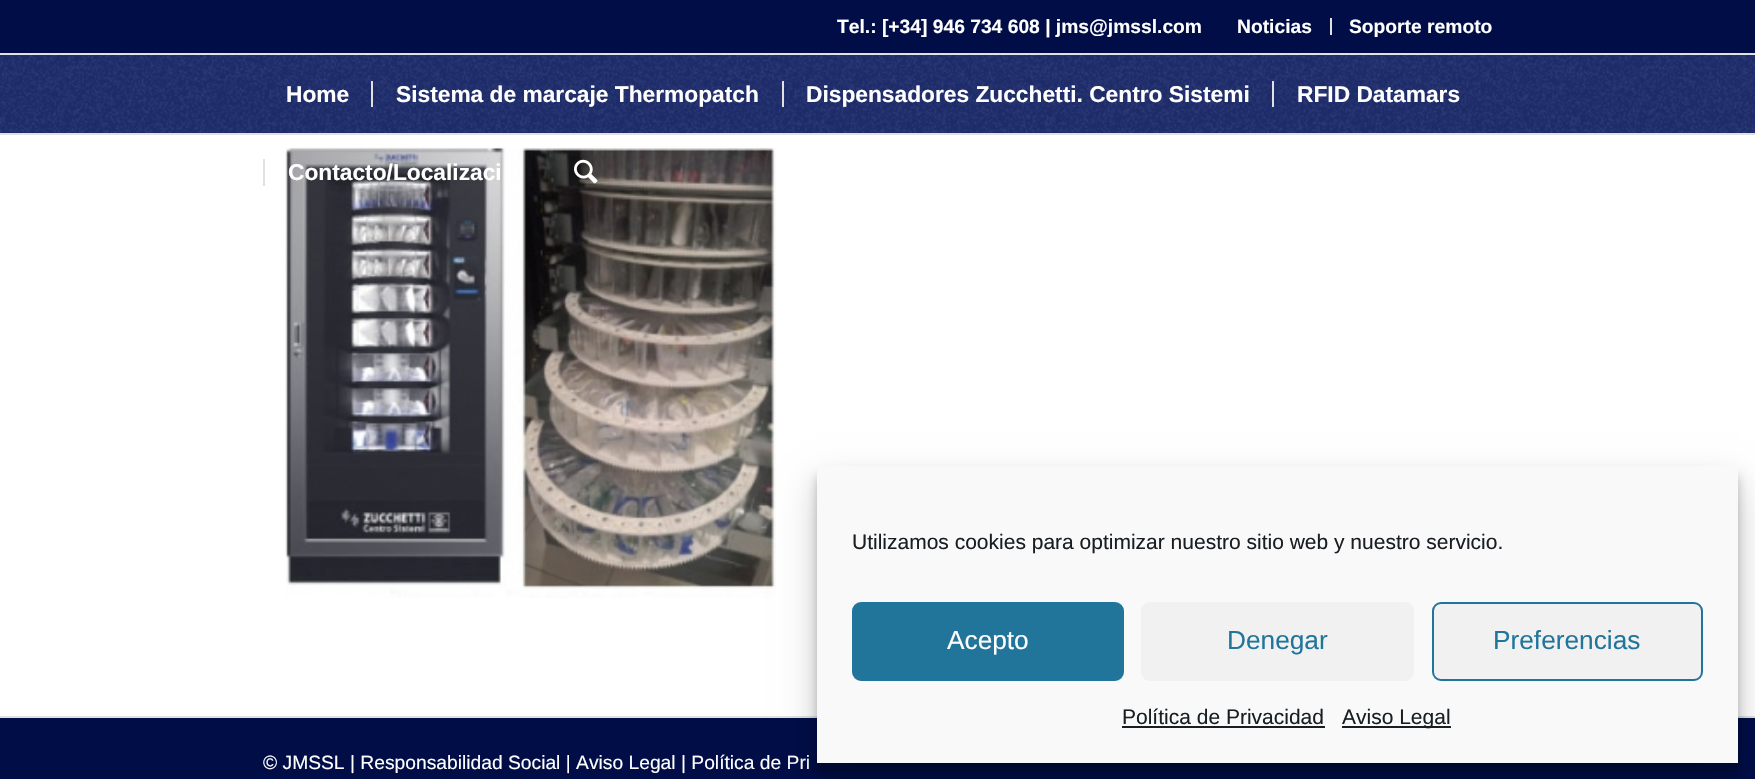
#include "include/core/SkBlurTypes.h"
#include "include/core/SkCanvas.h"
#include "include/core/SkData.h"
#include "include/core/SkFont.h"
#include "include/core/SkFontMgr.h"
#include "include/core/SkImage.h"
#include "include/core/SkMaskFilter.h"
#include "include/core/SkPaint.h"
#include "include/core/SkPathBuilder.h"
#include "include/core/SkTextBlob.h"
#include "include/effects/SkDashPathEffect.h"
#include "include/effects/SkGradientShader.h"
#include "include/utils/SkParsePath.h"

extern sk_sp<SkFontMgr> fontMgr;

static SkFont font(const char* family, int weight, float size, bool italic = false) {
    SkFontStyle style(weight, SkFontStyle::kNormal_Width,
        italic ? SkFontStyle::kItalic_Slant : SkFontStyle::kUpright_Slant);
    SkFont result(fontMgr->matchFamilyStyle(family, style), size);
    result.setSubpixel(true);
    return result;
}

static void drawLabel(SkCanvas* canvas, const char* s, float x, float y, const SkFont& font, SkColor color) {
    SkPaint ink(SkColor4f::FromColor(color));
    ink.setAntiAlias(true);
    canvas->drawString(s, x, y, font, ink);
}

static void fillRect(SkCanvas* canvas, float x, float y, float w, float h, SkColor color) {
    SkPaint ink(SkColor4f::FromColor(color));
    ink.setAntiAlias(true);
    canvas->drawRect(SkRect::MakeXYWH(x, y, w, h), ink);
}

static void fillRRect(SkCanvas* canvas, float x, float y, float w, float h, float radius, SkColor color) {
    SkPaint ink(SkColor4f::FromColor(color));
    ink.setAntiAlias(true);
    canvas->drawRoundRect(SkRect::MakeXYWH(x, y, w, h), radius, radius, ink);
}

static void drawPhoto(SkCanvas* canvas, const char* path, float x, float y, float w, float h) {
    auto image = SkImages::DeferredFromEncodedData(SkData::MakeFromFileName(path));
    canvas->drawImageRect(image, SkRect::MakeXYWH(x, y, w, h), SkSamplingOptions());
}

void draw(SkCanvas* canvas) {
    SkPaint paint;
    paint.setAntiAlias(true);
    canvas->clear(0xFFFFFFFF);
    fillRect(canvas, 0, 0, 1755, 53, 0xFF000D47);
    fillRect(canvas, 0, 53, 1755, 2, 0xFFE1E1E1);
    SkFont font1 = font("Liberation Sans", 700, 19.25f);
    drawLabel(canvas, "Tel.: [+34] 946 734 608 | jms@jmssl.com", 837, 33, font1, 0xFFFFFFFF);
    fillRect(canvas, 1330, 18, 2, 17, 0xFFE1E1E1);
    drawLabel(canvas, "Noticias", 1237, 33, font1, 0xFFFFFFFF);
    drawLabel(canvas, "Soporte remoto", 1349, 33, font1, 0xFFFFFFFF);
    fillRect(canvas, 0, 55, 1755, 78, 0xFF213076);
    drawPhoto(canvas, "assets/img1.png", 0, 55, 1755, 78);
    fillRect(canvas, 0, 133, 1755, 2, 0xFFE1E1E1);
    SkFont font2 = font("Liberation Sans", 700, 22.75f);
    drawLabel(canvas, "Home", 286, 102, font2, 0xFFFFFFFF);
    drawLabel(canvas, "Sistema de marcaje Thermopatch", 396, 102, font2, 0xFFFFFFFF);
    fillRect(canvas, 371, 81, 2, 26, 0xFFE1E1E1);
    drawLabel(canvas, "Dispensadores Zucchetti. Centro Sistemi", 806, 102, font2, 0xFFFFFFFF);
    fillRect(canvas, 782, 81, 2, 26, 0xFFE1E1E1);
    drawLabel(canvas, "RFID Datamars", 1297, 102, font2, 0xFFFFFFFF);
    fillRect(canvas, 1272, 81, 2, 26, 0xFFE1E1E1);
    drawPhoto(canvas, "assets/img3.png", 285, 147, 491, 451);
    drawLabel(canvas, "Contacto/Localizaci", 288, 180, font2, 0xFFFFFFFF);
    fillRect(canvas, 263, 159, 2, 27, 0xFFE1E1E1);
    drawPhoto(canvas, "assets/img2.png", 574, 159, 24, 25);
    fillRect(canvas, 0, 718, 1755, 61, 0xFF000D47);
    fillRect(canvas, 0, 716, 1755, 2, 0xFFE1E1E1);
    SkFont font3 = font("Liberation Sans", 400, 19.25f);
    drawLabel(canvas, "© JMSSL | Responsabilidad Social | Aviso Legal | Política de Pri", 263, 769, font3, 0xFFFFFFFF);
    paint.setColor(0x3B000000);
    paint.setMaskFilter(SkMaskFilter::MakeBlur(kNormal_SkBlurStyle, 5));
    canvas->drawRect(SkRect::MakeXYWH(817, 476, 921, 298), paint);
    paint.setMaskFilter(nullptr);
    paint.setColor(0x30000000);
    paint.setMaskFilter(SkMaskFilter::MakeBlur(kNormal_SkBlurStyle, 17.5f));
    canvas->drawRect(SkRect::MakeXYWH(817, 483, 921, 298), paint);
    paint.setMaskFilter(nullptr);
    fillRect(canvas, 817, 466, 921, 297, 0xFFF9F9F9);
    SkFont font4 = font("Liberation Sans", 400, 21);
    drawLabel(canvas, "Utilizamos cookies para optimizar nuestro sitio web y nuestro servicio.", 852, 549, font4, 0xFF191E23);
    paint.setColor(0xFF21759B);
    canvas->drawRoundRect(SkRect::MakeXYWH(853, 603, 270, 77), 8, 8, paint);
    paint.setStroke(true);
    paint.setStrokeWidth(2);
    canvas->drawRoundRect(SkRect::MakeXYWH(853, 603, 270, 77), 8, 8, paint);
    SkFont font5 = font("Liberation Sans", 400, 26.25f);
    drawLabel(canvas, "Acepto", 947, 649, font5, 0xFFFFFFFF);
    fillRRect(canvas, 1141, 602, 273, 79, 9, 0xFFF1F1F1);
    drawLabel(canvas, "Denegar", 1227, 649, font5, 0xFF21759B);
    paint.setStroke(false);
    paint.setColor(0xFFF1F1F1);
    canvas->drawRoundRect(SkRect::MakeXYWH(1433, 603, 269, 77), 8, 8, paint);
    paint.setStroke(true);
    paint.setColor(0xFF21759B);
    canvas->drawRoundRect(SkRect::MakeXYWH(1433, 603, 269, 77), 8, 8, paint);
    drawLabel(canvas, "Preferencias", 1493, 649, font5, 0xFF21759B);
    drawLabel(canvas, "Política de Privacidad", 1122, 724, font4, 0xFF191E23);
    fillRect(canvas, 1122, 726, 203, 2, 0xFF191E23);
    fillRect(canvas, 1342, 726, 109, 2, 0xFF191E23);
    drawLabel(canvas, "Aviso Legal", 1342, 724, font4, 0xFF191E23);
}
